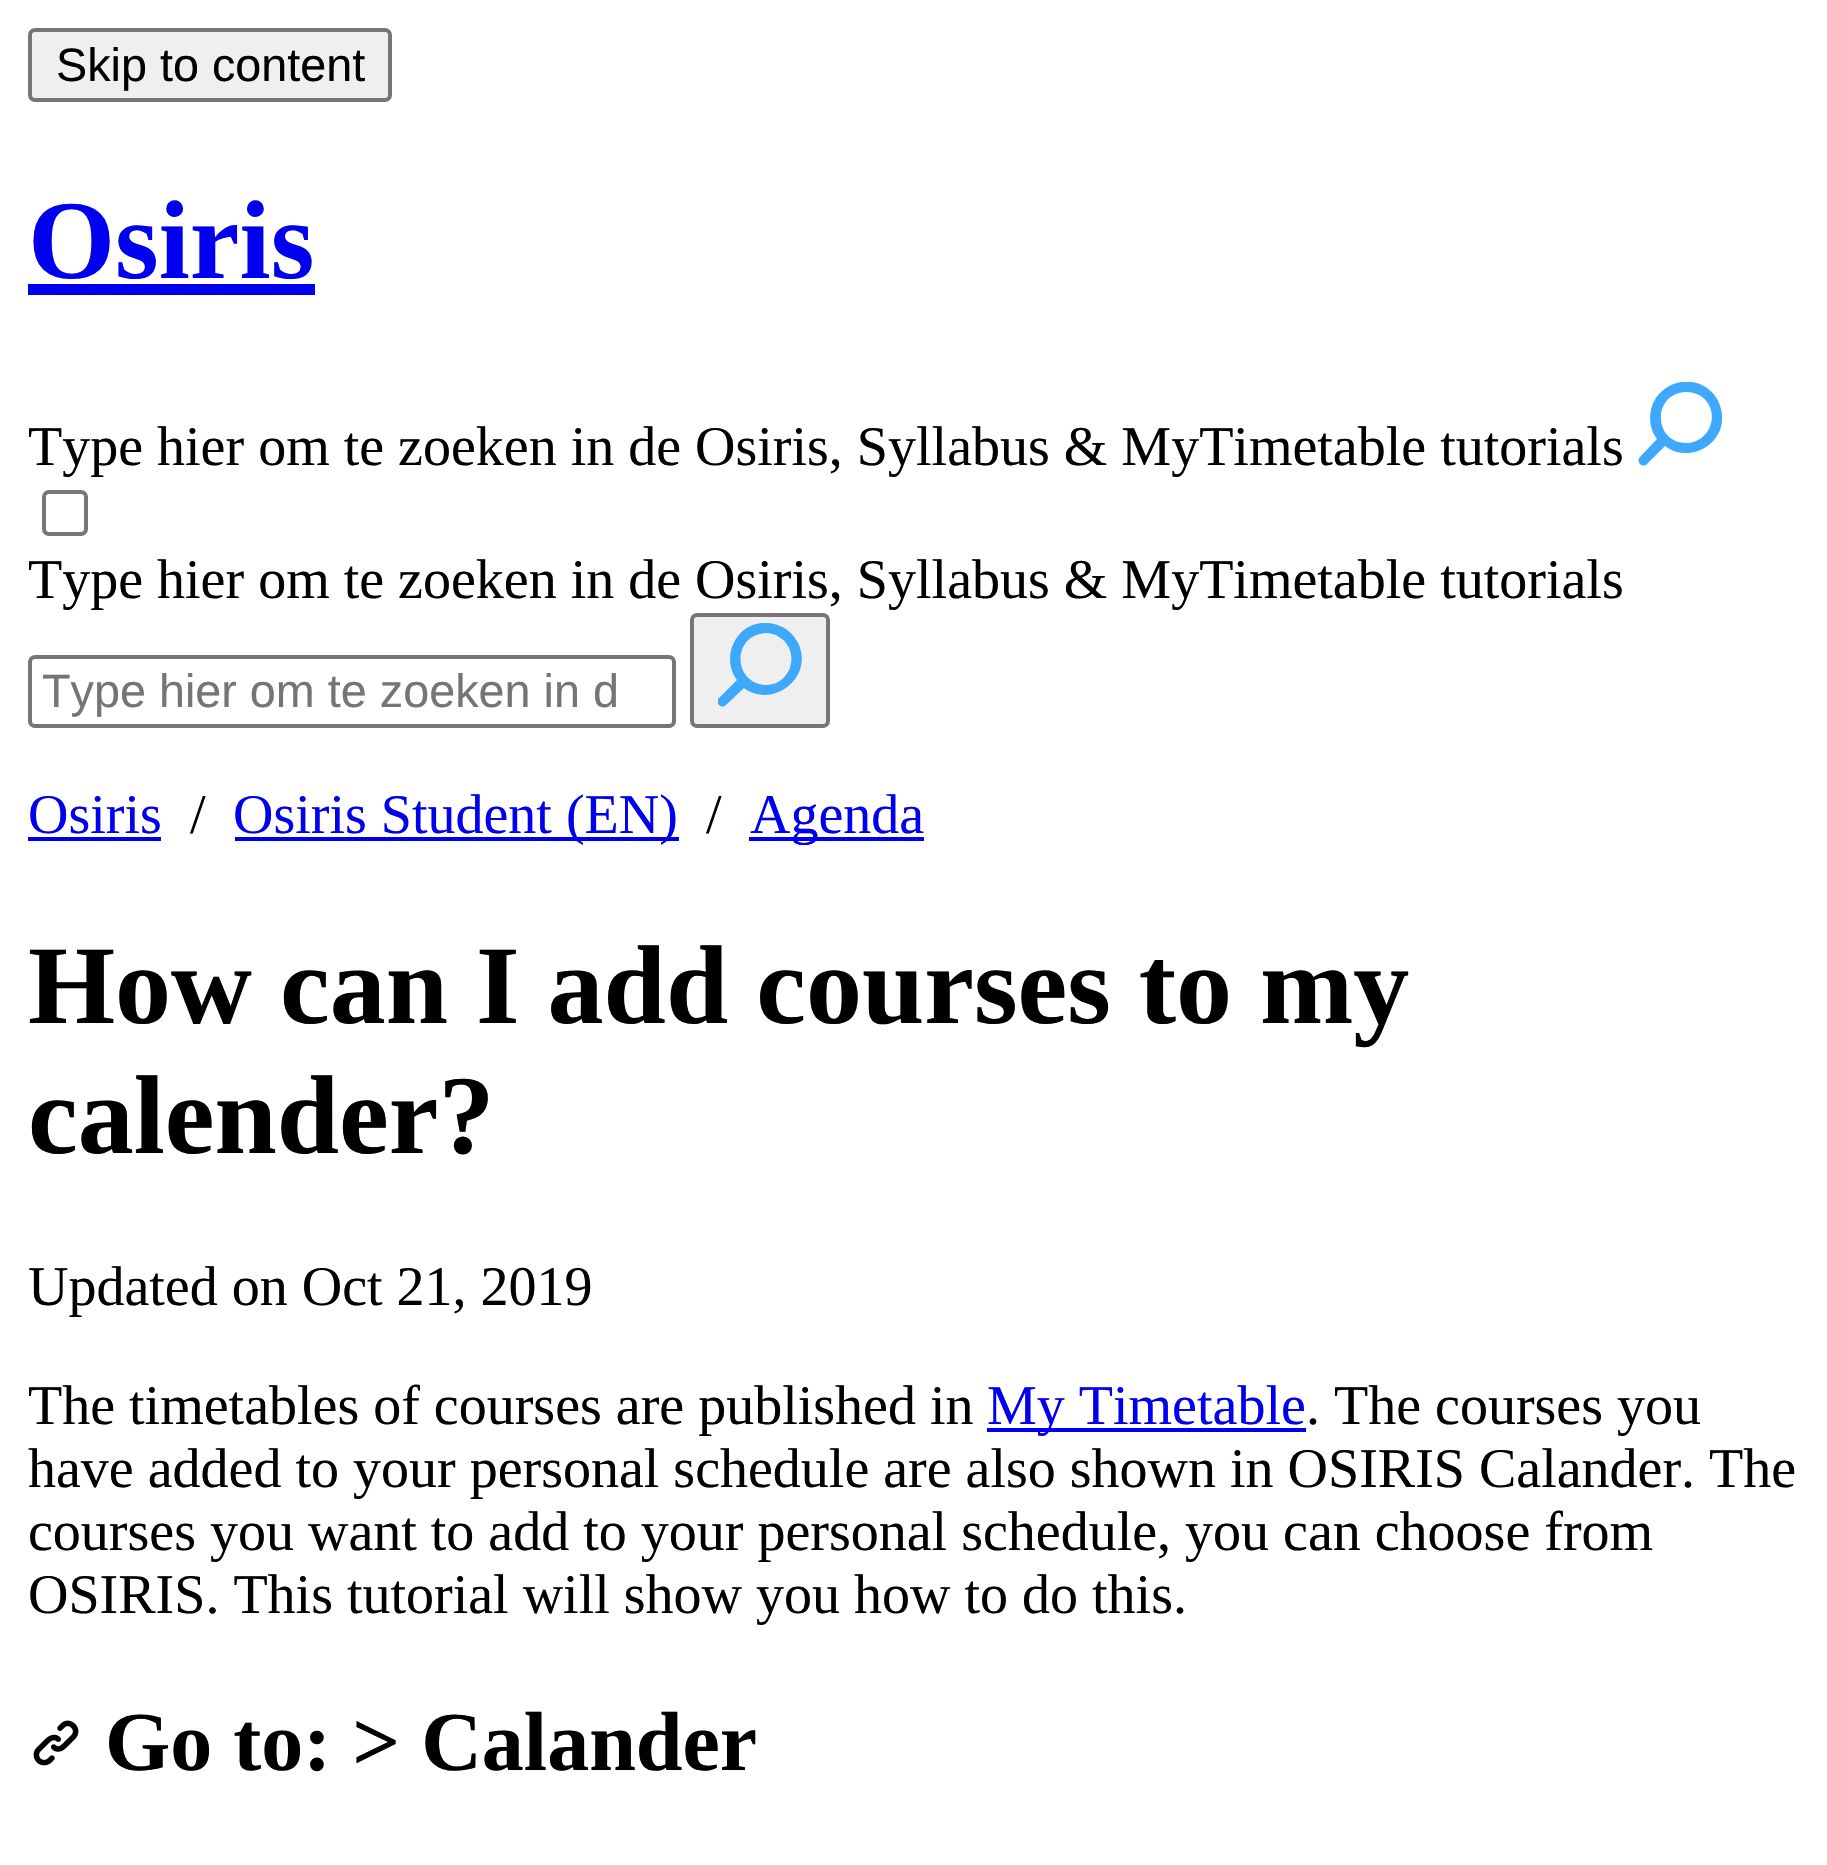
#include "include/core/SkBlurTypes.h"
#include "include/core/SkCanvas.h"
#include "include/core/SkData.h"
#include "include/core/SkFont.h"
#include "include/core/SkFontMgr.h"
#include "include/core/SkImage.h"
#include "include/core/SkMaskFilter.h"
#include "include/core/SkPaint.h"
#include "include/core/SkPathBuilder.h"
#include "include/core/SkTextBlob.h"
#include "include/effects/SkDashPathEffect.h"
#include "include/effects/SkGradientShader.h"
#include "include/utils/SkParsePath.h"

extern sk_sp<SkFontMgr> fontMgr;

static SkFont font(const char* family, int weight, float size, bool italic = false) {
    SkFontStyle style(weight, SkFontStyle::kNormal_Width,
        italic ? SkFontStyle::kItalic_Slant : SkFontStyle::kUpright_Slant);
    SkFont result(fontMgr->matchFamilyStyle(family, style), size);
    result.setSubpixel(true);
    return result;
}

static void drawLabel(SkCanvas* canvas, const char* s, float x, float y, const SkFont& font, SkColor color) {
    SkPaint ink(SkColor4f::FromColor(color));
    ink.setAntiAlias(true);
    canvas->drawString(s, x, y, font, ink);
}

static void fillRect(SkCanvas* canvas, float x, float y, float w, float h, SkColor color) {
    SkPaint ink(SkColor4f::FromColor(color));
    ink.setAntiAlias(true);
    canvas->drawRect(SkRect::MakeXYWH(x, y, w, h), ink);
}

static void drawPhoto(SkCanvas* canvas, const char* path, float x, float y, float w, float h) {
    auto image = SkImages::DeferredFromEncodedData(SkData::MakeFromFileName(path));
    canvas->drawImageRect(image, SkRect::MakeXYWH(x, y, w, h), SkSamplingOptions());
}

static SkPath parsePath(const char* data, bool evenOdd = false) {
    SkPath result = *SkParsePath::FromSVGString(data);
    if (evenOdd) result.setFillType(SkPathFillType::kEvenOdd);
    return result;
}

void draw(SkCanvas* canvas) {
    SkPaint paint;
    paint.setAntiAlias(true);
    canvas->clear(0xFFFFFFFF);
    paint.setColor(0xFFEFEFEF);
    canvas->drawRoundRect(SkRect::MakeXYWH(30, 30, 360, 70), 5, 5, paint);
    paint.setStroke(true);
    paint.setStrokeWidth(4);
    paint.setColor(0xFF767676);
    canvas->drawRoundRect(SkRect::MakeXYWH(30, 30, 360, 70), 5, 5, paint);
    SkFont font1 = font("Liberation Sans", 400, 46.75f);
    drawLabel(canvas, "Skip to content", 56, 81, font1, 0xFF000000);
    SkFont font2 = font("Liberation Serif", 700, 112);
    drawLabel(canvas, "Osiris", 28, 278, font2, 0xFF0000EE);
    fillRect(canvas, 28, 284, 287, 11, 0xFF0000EE);
    SkFont font3 = font("Liberation Serif", 400, 56);
    drawLabel(canvas, "Type hier om te zoeken in de Osiris, Syllabus & MyTimetable tutorials", 28, 465, font3, 0xFF000000);
    canvas->save();
    canvas->clipRect(SkRect::MakeXYWH(1638, 382, 84, 84));
    paint.setStroke(false);
    paint.setColor(0xFF3EA9FC);
    canvas->drawPath(parsePath("M1665 446L1647 464C1645 466 1642 466 1640 464C1638 462 1638 459 1640 457L1657 439C1645 423 1649 399 1666 388C1676 381 1689 380 1700 384C1709 388 1716 395 1719 403C1734 438 1693 467 1665 446ZM1686 443C1712 443 1722 408 1699 395C1695 393 1691 392 1686 392C1652 393 1653 443 1686 443Z"), paint);
    canvas->restore();
    paint.setStroke(true);
    paint.setColor(0xFF767676);
    canvas->drawRoundRect(SkRect::MakeXYWH(44, 492, 42, 42), 5, 5, paint);
    drawLabel(canvas, "Type hier om te zoeken in de Osiris, Syllabus & MyTimetable tutorials", 28, 598, font3, 0xFF000000);
    canvas->drawRoundRect(SkRect::MakeXYWH(30, 657, 644, 69), 5, 5, paint);
    drawLabel(canvas, "Type hier om te zoeken in d", 42, 707, font1, 0xFF757575);
    paint.setStroke(false);
    paint.setColor(0xFFEFEFEF);
    canvas->drawRoundRect(SkRect::MakeXYWH(692, 615, 136, 111), 5, 5, paint);
    paint.setStroke(true);
    paint.setColor(0xFF767676);
    canvas->drawRoundRect(SkRect::MakeXYWH(692, 615, 136, 111), 5, 5, paint);
    canvas->save();
    canvas->clipRect(SkRect::MakeXYWH(718, 623, 84, 84));
    paint.setStroke(false);
    paint.setColor(0xFF3EA9FC);
    canvas->drawPath(parsePath("M744 688L726 705C724 707 721 707 719 705C717 703 717 700 719 698L737 680C725 664 729 641 745 629C755 622 768 621 780 626C788 629 795 636 799 645C813 679 772 709 744 688ZM766 685C792 685 801 650 779 637C775 634 770 633 766 633C731 635 733 684 766 685Z"), paint);
    canvas->restore();
    drawLabel(canvas, "Osiris", 28, 833, font3, 0xFF0000EE);
    fillRect(canvas, 28, 837, 133, 4, 0xFF0000EE);
    drawLabel(canvas, "/", 190, 833, font3, 0xFF000000);
    fillRect(canvas, 235, 837, 444, 4, 0xFF0000EE);
    drawLabel(canvas, "Osiris Student (EN)", 233, 833, font3, 0xFF0000EE);
    drawLabel(canvas, "/", 706, 833, font3, 0xFF000000);
    fillRect(canvas, 749, 837, 175, 4, 0xFF0000EE);
    drawLabel(canvas, "Agenda", 750, 833, font3, 0xFF0000EE);
    drawLabel(canvas, "How can I add courses to my", 28, 1023, font2, 0xFF000000);
    drawLabel(canvas, "calender?", 28, 1153, font2, 0xFF000000);
    drawLabel(canvas, "Updated on Oct 21, 2019", 28, 1305, font3, 0xFF000000);
    drawLabel(canvas, "The timetables of courses are published in", 28, 1424, font3, 0xFF000000);
    fillRect(canvas, 987, 1428, 319, 4, 0xFF0000EE);
    drawLabel(canvas, "My Timetable", 987, 1424, font3, 0xFF0000EE);
    drawLabel(canvas, ". The courses you", 1306, 1424, font3, 0xFF000000);
    drawLabel(canvas, "have added to your personal schedule are also shown in OSIRIS Calander. The", 28, 1487, font3, 0xFF000000);
    drawLabel(canvas, "courses you want to add to your personal schedule, you can choose from", 28, 1550, font3, 0xFF000000);
    drawLabel(canvas, "OSIRIS. This tutorial will show you how to do this.", 28, 1613, font3, 0xFF000000);
    drawPhoto(canvas, "assets/img1.png", 33, 1720, 46, 46);
    SkFont font4 = font("Liberation Serif", 700, 84);
    drawLabel(canvas, "Go to: > Calander", 105, 1770, font4, 0xFF000000);
}
